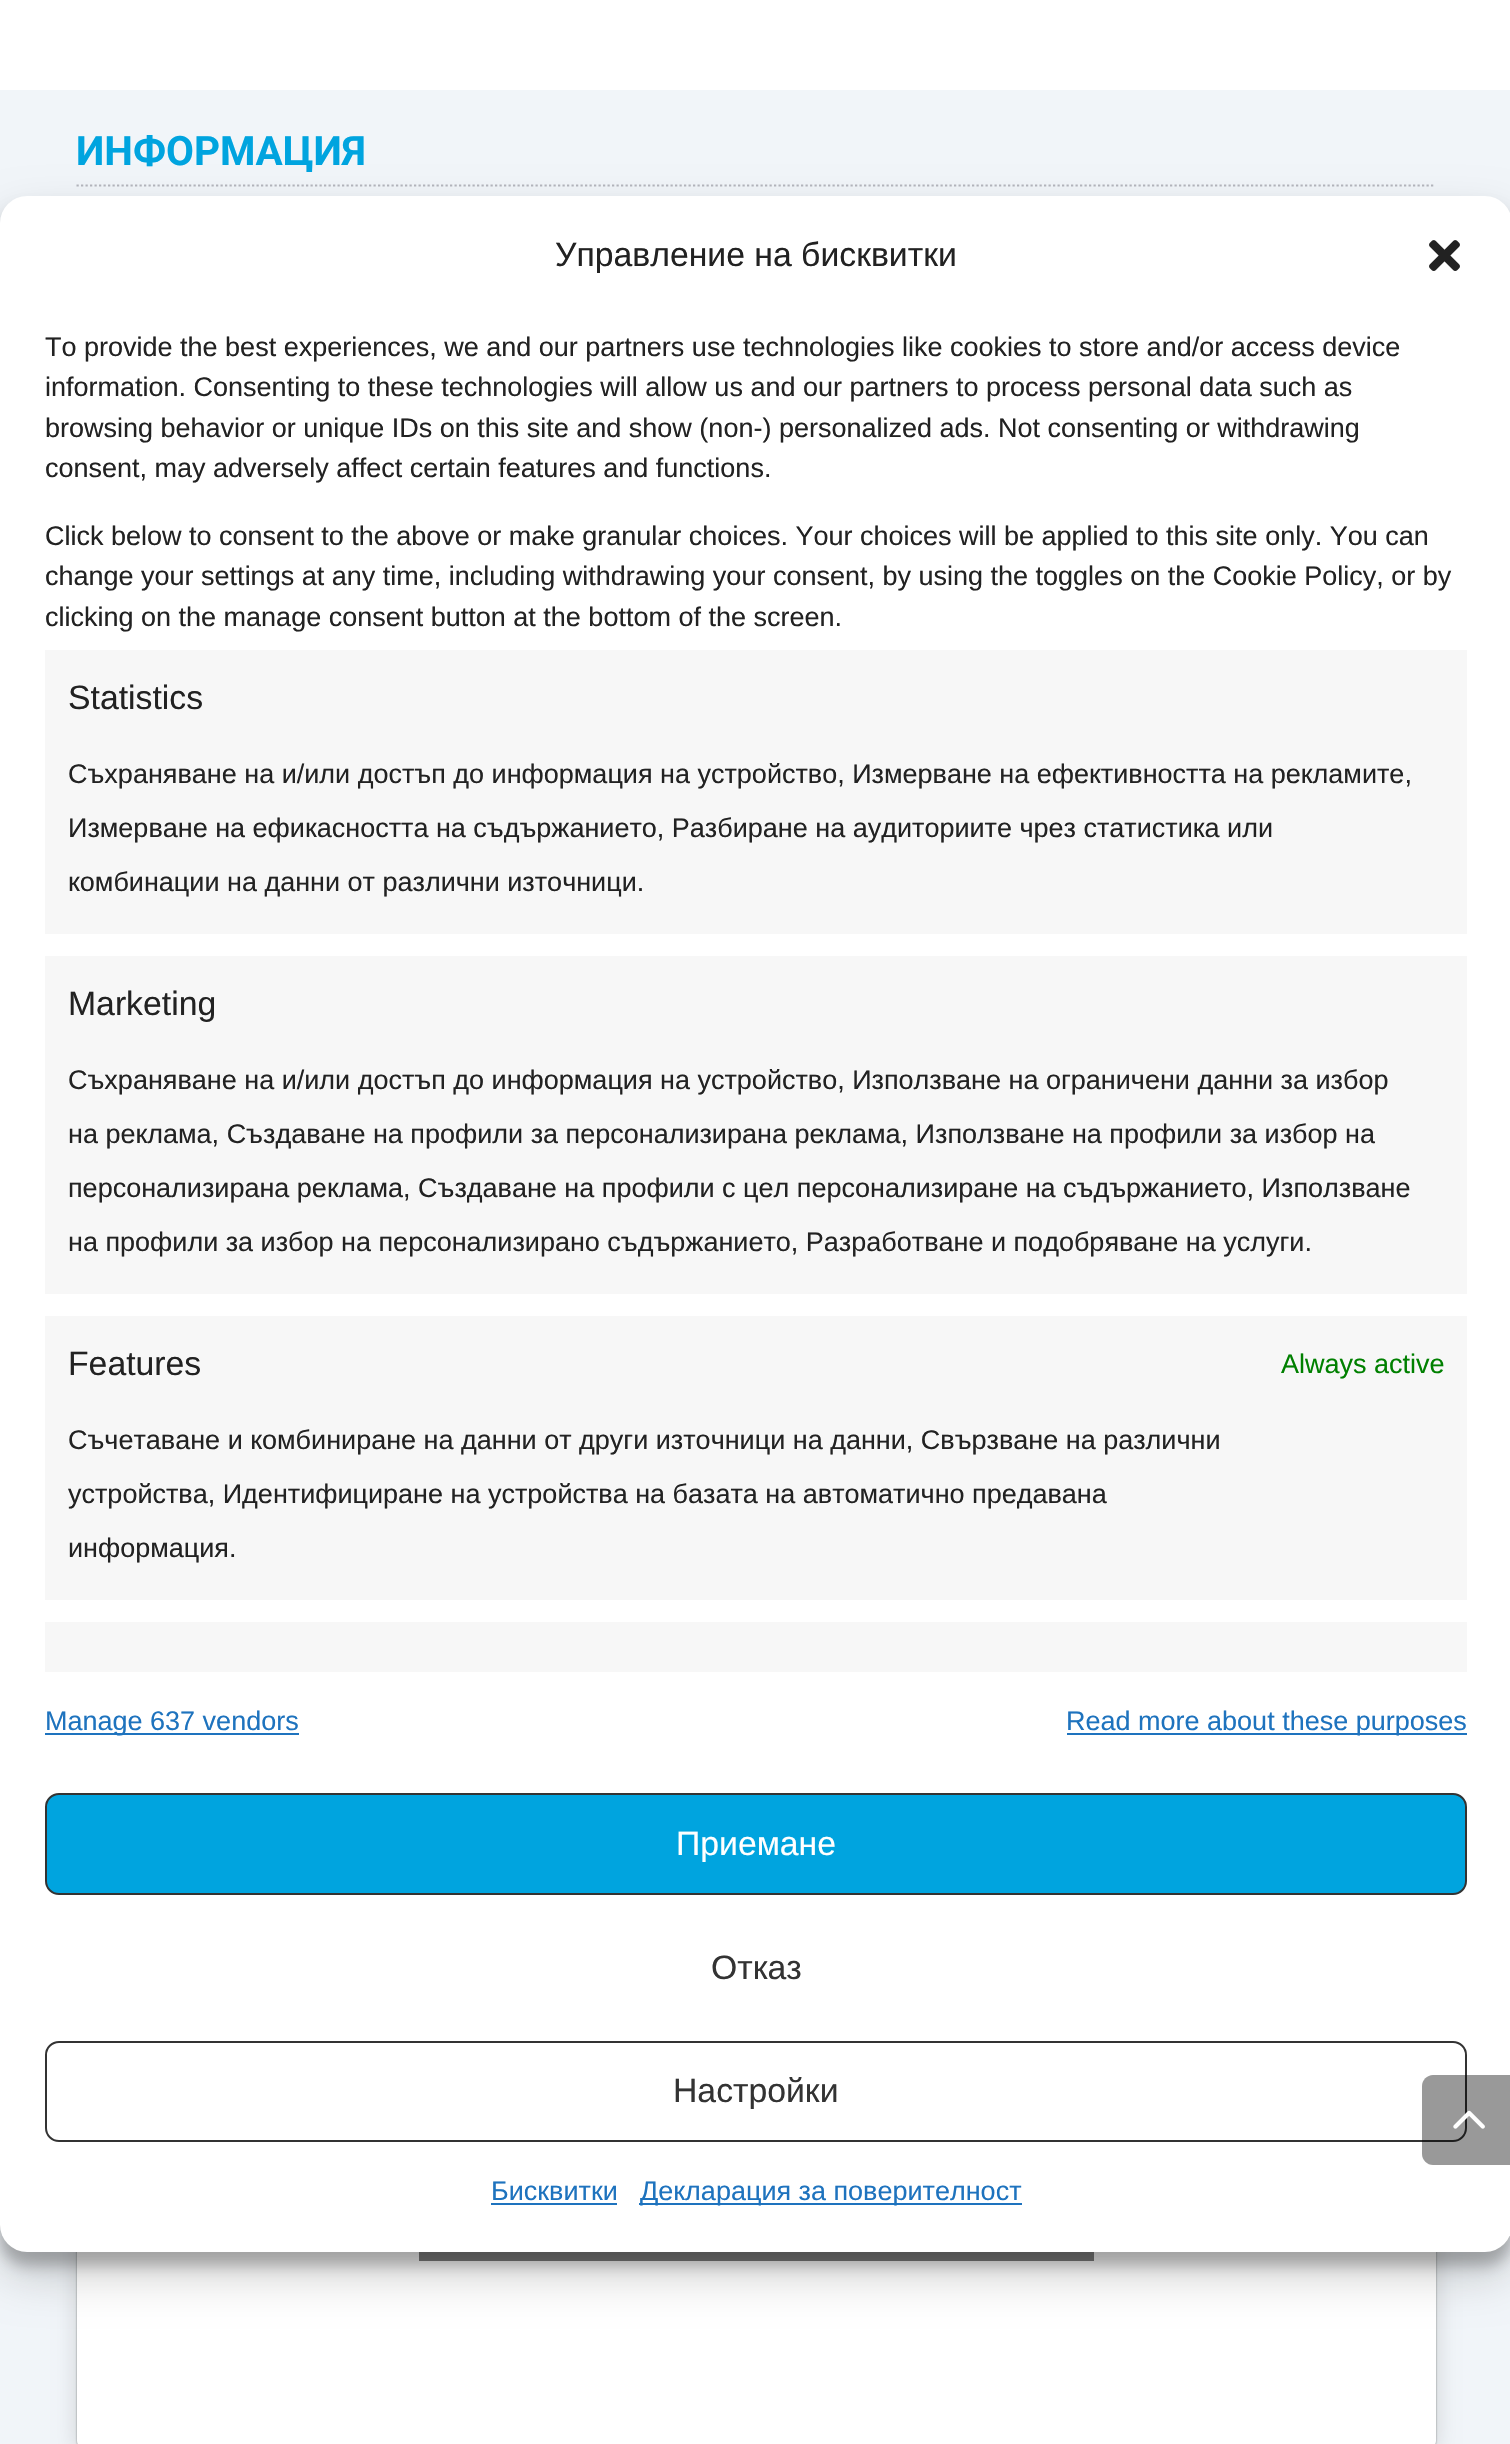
#include "include/core/SkBlurTypes.h"
#include "include/core/SkCanvas.h"
#include "include/core/SkData.h"
#include "include/core/SkFont.h"
#include "include/core/SkFontMgr.h"
#include "include/core/SkImage.h"
#include "include/core/SkMaskFilter.h"
#include "include/core/SkPaint.h"
#include "include/core/SkPathBuilder.h"
#include "include/core/SkTextBlob.h"
#include "include/effects/SkDashPathEffect.h"
#include "include/effects/SkGradientShader.h"
#include "include/utils/SkParsePath.h"

extern sk_sp<SkFontMgr> fontMgr;

static SkFont font(const char* family, int weight, float size, bool italic = false) {
    SkFontStyle style(weight, SkFontStyle::kNormal_Width,
        italic ? SkFontStyle::kItalic_Slant : SkFontStyle::kUpright_Slant);
    SkFont result(fontMgr->matchFamilyStyle(family, style), size);
    result.setSubpixel(true);
    return result;
}

static void drawLabel(SkCanvas* canvas, const char* s, float x, float y, const SkFont& font, SkColor color) {
    SkPaint ink(SkColor4f::FromColor(color));
    ink.setAntiAlias(true);
    canvas->drawString(s, x, y, font, ink);
}

static void fillRect(SkCanvas* canvas, float x, float y, float w, float h, SkColor color) {
    SkPaint ink(SkColor4f::FromColor(color));
    ink.setAntiAlias(true);
    canvas->drawRect(SkRect::MakeXYWH(x, y, w, h), ink);
}

static void fillRRect(SkCanvas* canvas, float x, float y, float w, float h, float radius, SkColor color) {
    SkPaint ink(SkColor4f::FromColor(color));
    ink.setAntiAlias(true);
    canvas->drawRoundRect(SkRect::MakeXYWH(x, y, w, h), radius, radius, ink);
}

static void drawPhoto(SkCanvas* canvas, const char* path, float x, float y, float w, float h) {
    auto image = SkImages::DeferredFromEncodedData(SkData::MakeFromFileName(path));
    canvas->drawImageRect(image, SkRect::MakeXYWH(x, y, w, h), SkSamplingOptions());
}

static SkPath parsePath(const char* data, bool evenOdd = false) {
    SkPath result = *SkParsePath::FromSVGString(data);
    if (evenOdd) result.setFillType(SkPathFillType::kEvenOdd);
    return result;
}

void draw(SkCanvas* canvas) {
    SkPaint paint;
    paint.setAntiAlias(true);
    canvas->clear(0xFFFFFFFF);
    fillRect(canvas, 0, 90, 1510, 2354, 0xFFF1F5F9);
    paint.setStroke(true);
    paint.setStrokeWidth(2.2f);
    paint.setColor(0xFFB4B6BD);
    paint.setPathEffect(SkDashPathEffect::Make({{2.25f, 2.25f}}, 0));
    canvas->drawPath(parsePath("M76.5 185.5H1435.5"), paint);
    paint.setPathEffect(nullptr);
    SkFont font1 = font("Roboto", 700, 40.5f);
    drawLabel(canvas, "ИНФОРМАЦИЯ", 76, 165, font1, 0xFF00A4DF);
    paint.setStroke(false);
    paint.setColor(0x26000000);
    paint.setMaskFilter(SkMaskFilter::MakeBlur(kNormal_SkBlurStyle, 11));
    canvas->drawRoundRect(SkRect::MakeXYWH(77, 1865, 1359, 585), 7, 7, paint);
    paint.setMaskFilter(nullptr);
    paint.setColor(0x80000000);
    paint.setMaskFilter(SkMaskFilter::MakeBlur(kNormal_SkBlurStyle, 1));
    canvas->drawRoundRect(SkRect::MakeXYWH(77, 1863, 1359, 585), 7, 7, paint);
    paint.setMaskFilter(nullptr);
    fillRRect(canvas, 77, 1863, 1359, 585, 7, 0xFFFFFFFF);
    fillRect(canvas, 419, 2252, 675, 9, 0xFF808080);
    paint.setColor(0x3B000000);
    paint.setMaskFilter(SkMaskFilter::MakeBlur(kNormal_SkBlurStyle, 7));
    canvas->drawRoundRect(SkRect::MakeXYWH(0, 209, 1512, 2057), 27, 27, paint);
    paint.setMaskFilter(nullptr);
    paint.setColor(0x30000000);
    paint.setMaskFilter(SkMaskFilter::MakeBlur(kNormal_SkBlurStyle, 22.5f));
    canvas->drawRoundRect(SkRect::MakeXYWH(0, 218, 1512, 2057), 27, 27, paint);
    paint.setMaskFilter(nullptr);
    fillRRect(canvas, 0, 196, 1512, 2056, 27, 0xFFFFFFFF);
    paint.setStroke(true);
    paint.setStrokeWidth(2);
    paint.setColor(0xFF333333);
    canvas->drawRoundRect(SkRect::MakeXYWH(46, 2042, 1420, 99), 13, 13, paint);
    paint.setStroke(false);
    paint.setColor(0x66000000);
    canvas->drawPath(parsePath("M1433 2075H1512V2165H1433C1427 2165 1422 2160 1422 2154V2086C1422 2080 1427 2075 1433 2075Z"), paint);
    drawPhoto(canvas, "assets/img1.png", 1453, 2110, 32, 19);
    SkFont font2 = font("Liberation Sans", 400, 33.75f);
    drawLabel(canvas, "Управление на бисквитки", 555, 266, font2, 0xFF222222);
    drawPhoto(canvas, "assets/img2.png", 1429, 240, 31, 31);
    SkFont font3 = font("Liberation Sans", 400, 27);
    drawLabel(canvas, "To provide the best experiences, we and our partners use technologies like cookies to store and/or access device", 45, 356, font3, 0xFF222222);
    drawLabel(canvas, "information. Consenting to these technologies will allow us and our partners to process personal data such as", 45, 396, font3, 0xFF222222);
    drawLabel(canvas, "browsing behavior or unique IDs on this site and show (non-) personalized ads. Not consenting or withdrawing", 45, 437, font3, 0xFF222222);
    drawLabel(canvas, "consent, may adversely affect certain features and functions.", 45, 477, font3, 0xFF222222);
    drawLabel(canvas, "Click below to consent to the above or make granular choices. Your choices will be applied to this site only. You can", 45, 545, font3, 0xFF222222);
    drawLabel(canvas, "change your settings at any time, including withdrawing your consent, by using the toggles on the Cookie Policy, or by", 45, 585, font3, 0xFF222222);
    drawLabel(canvas, "clicking on the manage consent button at the bottom of the screen.", 45, 626, font3, 0xFF222222);
    fillRect(canvas, 45, 650, 1422, 284, 0xFFF7F7F7);
    drawLabel(canvas, "Statistics", 68, 709, font2, 0xFF222222);
    drawLabel(canvas, "Съхраняване на и/или достъп до информация на устройство, Измерване на ефективността на рекламите,", 68, 783, font3, 0xFF222222);
    drawLabel(canvas, "Измерване на ефикасността на съдържанието, Разбиране на аудиториите чрез статистика или", 68, 837, font3, 0xFF222222);
    drawLabel(canvas, "комбинации на данни от различни източници.", 68, 891, font3, 0xFF222222);
    fillRect(canvas, 45, 956, 1422, 338, 0xFFF7F7F7);
    drawLabel(canvas, "Marketing", 68, 1015, font2, 0xFF222222);
    drawLabel(canvas, "Съхраняване на и/или достъп до информация на устройство, Използване на ограничени данни за избор", 68, 1089, font3, 0xFF222222);
    drawLabel(canvas, "на реклама, Създаване на профили за персонализирана реклама, Използване на профили за избор на", 68, 1143, font3, 0xFF222222);
    drawLabel(canvas, "персонализирана реклама, Създаване на профили с цел персонализиране на съдържанието, Използване", 68, 1197, font3, 0xFF222222);
    drawLabel(canvas, "на профили за избор на персонализирано съдържанието, Разработване и подобряване на услуги.", 68, 1251, font3, 0xFF222222);
    fillRect(canvas, 45, 1316, 1422, 284, 0xFFF7F7F7);
    drawLabel(canvas, "Features", 68, 1375, font2, 0xFF222222);
    drawLabel(canvas, "Always active", 1281, 1373, font3, 0xFF008000);
    drawLabel(canvas, "Съчетаване и комбиниране на данни от други източници на данни, Свързване на различни", 68, 1449, font3, 0xFF222222);
    drawLabel(canvas, "устройства, Идентифициране на устройства на базата на автоматично предавана", 68, 1503, font3, 0xFF222222);
    drawLabel(canvas, "информация.", 68, 1557, font3, 0xFF222222);
    fillRect(canvas, 45, 1622, 1422, 50, 0xFFF7F7F7);
    fillRect(canvas, 45, 1733, 254, 2, 0xFF1E73BE);
    drawLabel(canvas, "Manage 637 vendors", 45, 1730, font3, 0xFF1E73BE);
    fillRect(canvas, 1067, 1733, 400, 2, 0xFF1E73BE);
    drawLabel(canvas, "Read more about these purposes", 1066, 1730, font3, 0xFF1E73BE);
    paint.setColor(0xFF00A4DF);
    canvas->drawRoundRect(SkRect::MakeXYWH(46, 1794, 1420, 100), 13, 13, paint);
    paint.setStroke(true);
    paint.setColor(0xFF333333);
    canvas->drawRoundRect(SkRect::MakeXYWH(46, 1794, 1420, 100), 13, 13, paint);
    drawLabel(canvas, "Приемане", 676, 1855, font2, 0xFFFFFFFF);
    drawLabel(canvas, "Отказ", 711, 1979, font2, 0xFF333333);
    drawLabel(canvas, "Настройки", 673, 2102, font2, 0xFF333333);
    drawLabel(canvas, "Бисквитки", 491, 2200, font3, 0xFF1E73BE);
    fillRect(canvas, 491, 2203, 126, 2, 0xFF1E73BE);
    fillRect(canvas, 639, 2203, 383, 2, 0xFF1E73BE);
    drawLabel(canvas, "Декларация за поверителност", 640, 2200, font3, 0xFF1E73BE);
}
